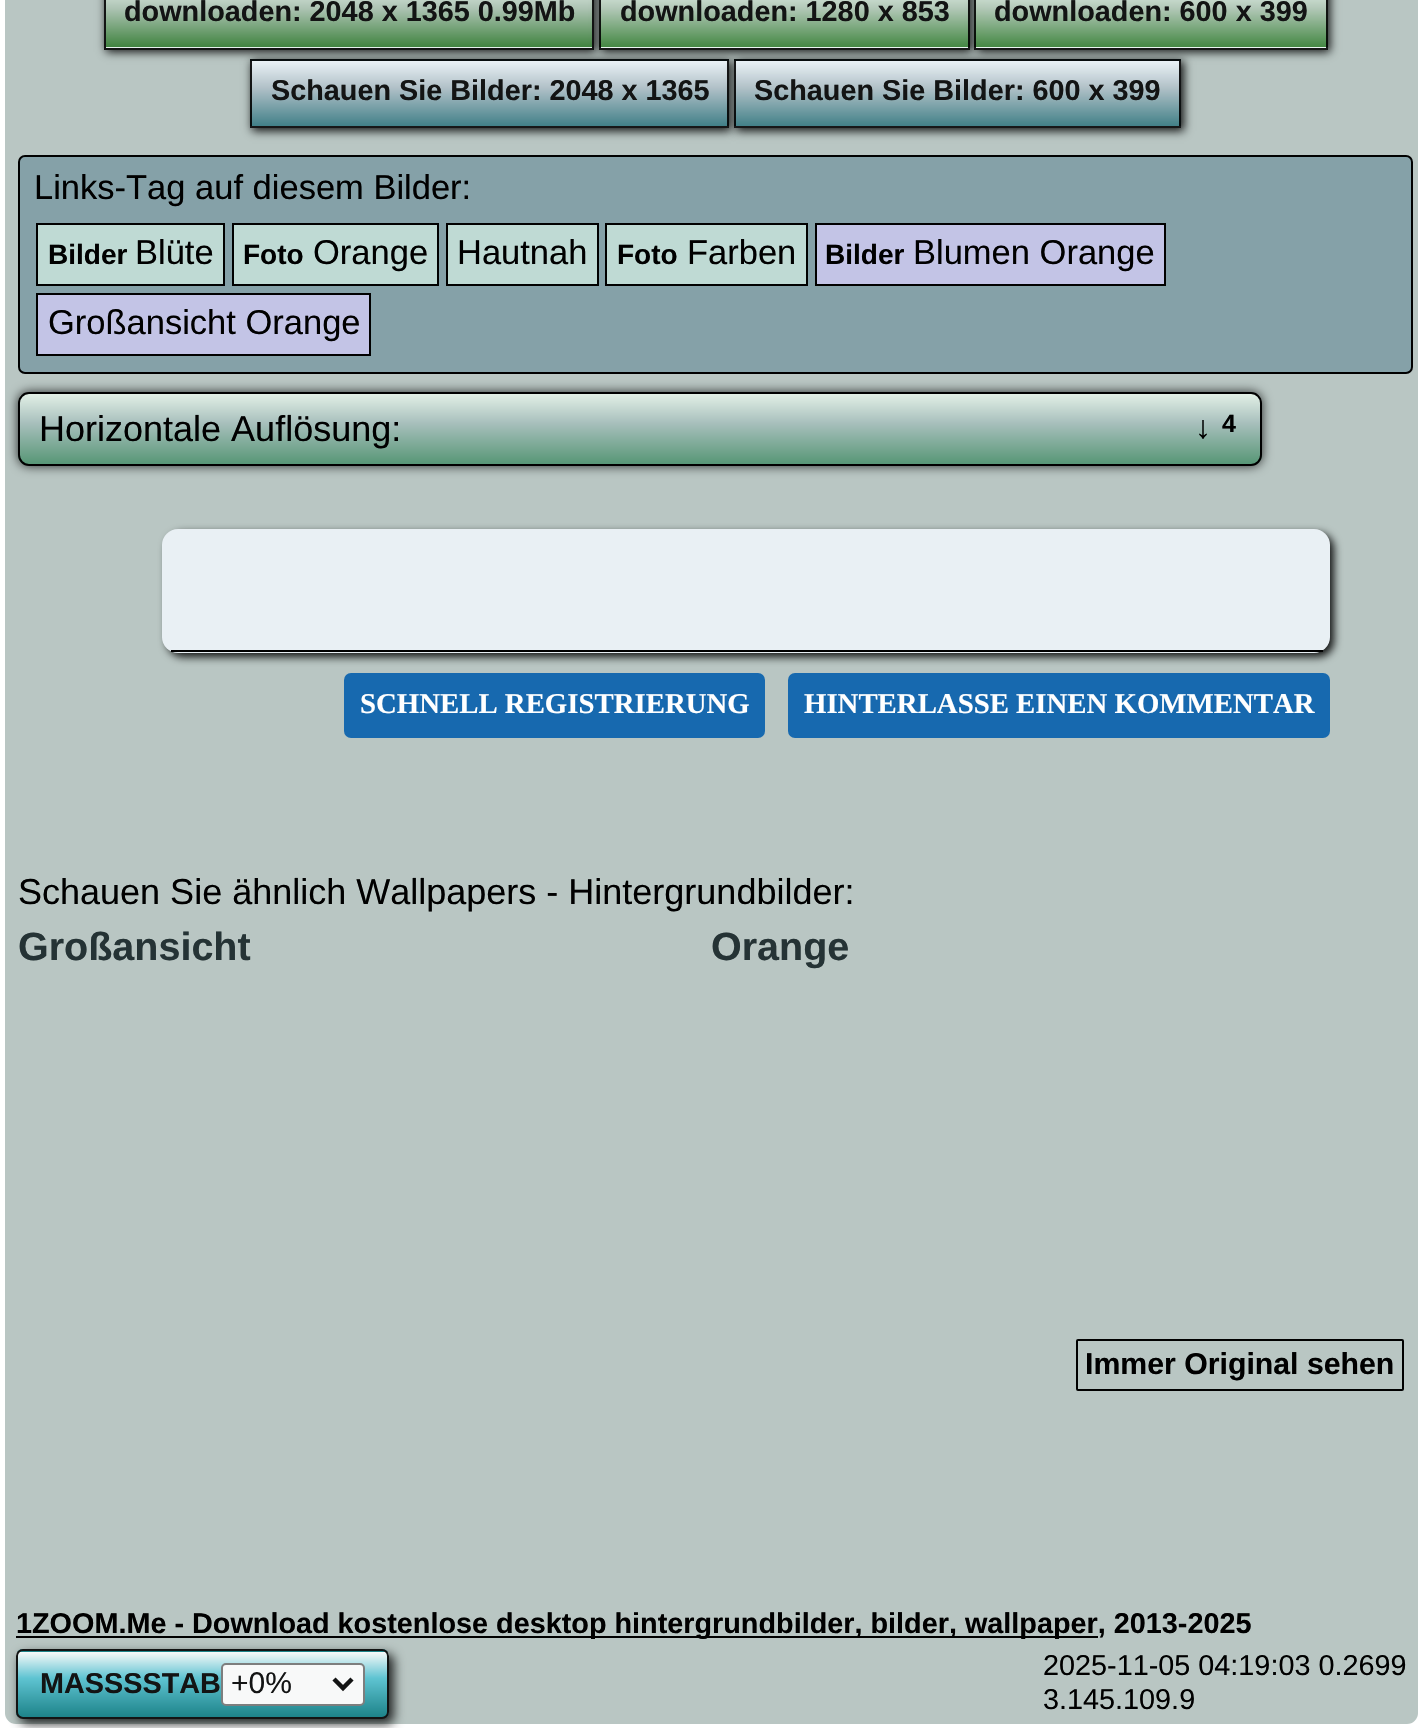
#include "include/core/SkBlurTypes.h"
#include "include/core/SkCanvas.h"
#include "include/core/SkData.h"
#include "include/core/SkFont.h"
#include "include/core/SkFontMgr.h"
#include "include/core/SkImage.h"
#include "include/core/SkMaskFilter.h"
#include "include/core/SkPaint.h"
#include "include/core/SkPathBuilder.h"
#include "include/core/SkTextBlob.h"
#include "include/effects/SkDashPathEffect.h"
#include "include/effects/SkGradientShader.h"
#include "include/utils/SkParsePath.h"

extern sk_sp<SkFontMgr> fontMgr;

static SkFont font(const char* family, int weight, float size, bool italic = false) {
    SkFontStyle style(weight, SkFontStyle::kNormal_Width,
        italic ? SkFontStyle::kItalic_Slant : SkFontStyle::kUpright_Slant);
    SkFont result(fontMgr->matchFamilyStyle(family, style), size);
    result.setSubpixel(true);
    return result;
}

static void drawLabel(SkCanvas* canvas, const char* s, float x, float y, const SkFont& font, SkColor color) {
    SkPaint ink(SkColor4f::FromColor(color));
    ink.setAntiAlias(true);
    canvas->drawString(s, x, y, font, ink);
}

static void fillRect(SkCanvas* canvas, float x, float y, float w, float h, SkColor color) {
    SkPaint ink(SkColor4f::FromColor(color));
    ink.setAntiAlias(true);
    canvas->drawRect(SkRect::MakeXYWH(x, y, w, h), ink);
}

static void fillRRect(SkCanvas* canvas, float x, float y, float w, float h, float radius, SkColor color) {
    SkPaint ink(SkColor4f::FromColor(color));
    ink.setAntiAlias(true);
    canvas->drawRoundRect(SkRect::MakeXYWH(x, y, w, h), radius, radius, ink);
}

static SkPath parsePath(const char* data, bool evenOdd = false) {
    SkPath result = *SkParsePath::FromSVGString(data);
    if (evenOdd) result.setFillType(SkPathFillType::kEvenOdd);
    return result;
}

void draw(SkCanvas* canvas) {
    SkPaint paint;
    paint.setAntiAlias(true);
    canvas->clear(0xFFFFFFFF);
    fillRRect(canvas, 5, -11, 1413, 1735, 11, 0xFFB9C6C3);
    paint.setColor(0xFF131414);
    paint.setMaskFilter(SkMaskFilter::MakeBlur(kNormal_SkBlurStyle, 4.5f));
    canvas->drawRect(SkRect::MakeXYWH(106, -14, 490, 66), paint);
    paint.setMaskFilter(nullptr);
    {
        const SkColor colors[] = {0xFF40833F, 0xFFAEC4B4, 0xFFE5F2EC};
        const float stops[] = {0, 0.6f, 1};
        const SkPoint ends[] = {{349, 47}, {349, -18}};
        paint.setShader(SkGradientShader::MakeLinear(ends, colors, stops, 3, SkTileMode::kClamp));
        paint.setAlpha(255);
    }
    canvas->drawRect(SkRect::MakeXYWH(106, 0, 486, 47), paint);
    {
        const SkColor colors[] = {0xFF40833F, 0xFFAEC4B4, 0xFFE5F2EC};
        const float stops[] = {0, 0.6f, 1};
        const SkPoint ends[] = {{349, 113}, {349, 47}};
        paint.setShader(SkGradientShader::MakeLinear(ends, colors, stops, 3, SkTileMode::kClamp));
        paint.setAlpha(255);
    }
    canvas->drawRect(SkRect::MakeXYWH(104, 47, 490, 1), paint);
    paint.setStroke(true);
    paint.setStrokeWidth(2);
    paint.setShader(nullptr);
    paint.setColor(0xFF131414);
    canvas->drawRect(SkRect::MakeXYWH(105, -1, 488, 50), paint);
    SkFont font1 = font("Liberation Sans", 700, 28.8f);
    drawLabel(canvas, "downloaden: 2048 x 1365 0.99Mb", 124, 21, font1, 0xFF131414);
    canvas->save();
    canvas->clipPath(parsePath("M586 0H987V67H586ZM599-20H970V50H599Z", true), true);
    paint.setStroke(false);
    paint.setColor(0xE6000000);
    paint.setMaskFilter(SkMaskFilter::MakeBlur(kNormal_SkBlurStyle, 4.5f));
    canvas->drawRect(SkRect::MakeXYWH(601, -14, 371, 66), paint);
    paint.setMaskFilter(nullptr);
    canvas->restore();
    fillRect(canvas, 599, 0, 371, 50, 0xE6EAF7F0);
    {
        const SkColor colors[] = {0xE6327C30, 0xE6ADC4B2, 0xE6EAF7F0};
        const float stops[] = {0, 0.6f, 1};
        const SkPoint ends[] = {{784, 47}, {784, -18}};
        paint.setShader(SkGradientShader::MakeLinear(ends, colors, stops, 3, SkTileMode::kClamp));
        paint.setAlpha(255);
    }
    canvas->drawRect(SkRect::MakeXYWH(599, 0, 371, 47), paint);
    {
        const SkColor colors[] = {0xE6327C30, 0xE6ADC4B2, 0xE6EAF7F0};
        const float stops[] = {0, 0.6f, 1};
        const SkPoint ends[] = {{784, 113}, {784, 47}};
        paint.setShader(SkGradientShader::MakeLinear(ends, colors, stops, 3, SkTileMode::kClamp));
        paint.setAlpha(255);
    }
    canvas->drawRect(SkRect::MakeXYWH(599, 47, 371, 3), paint);
    paint.setStroke(true);
    paint.setShader(nullptr);
    paint.setColor(0xE6000000);
    canvas->drawRect(SkRect::MakeXYWH(600, -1, 369, 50), paint);
    drawLabel(canvas, "downloaden: 1280 x 853", 620, 21, font1, 0xFF131414);
    canvas->save();
    canvas->clipPath(parsePath("M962 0H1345V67H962ZM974-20H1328V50H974Z", true), true);
    paint.setStroke(false);
    paint.setMaskFilter(SkMaskFilter::MakeBlur(kNormal_SkBlurStyle, 4.5f));
    canvas->drawRect(SkRect::MakeXYWH(977, -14, 353, 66), paint);
    paint.setMaskFilter(nullptr);
    canvas->restore();
    fillRect(canvas, 974, 0, 354, 50, 0xE6EAF7F0);
    {
        const SkColor colors[] = {0xE6327C30, 0xE6ADC4B2, 0xE6EAF7F0};
        const float stops[] = {0, 0.6f, 1};
        const SkPoint ends[] = {{1151, 47}, {1151, -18}};
        paint.setShader(SkGradientShader::MakeLinear(ends, colors, stops, 3, SkTileMode::kClamp));
        paint.setAlpha(255);
    }
    canvas->drawRect(SkRect::MakeXYWH(974, 0, 354, 47), paint);
    {
        const SkColor colors[] = {0xE6327C30, 0xE6ADC4B2, 0xE6EAF7F0};
        const float stops[] = {0, 0.6f, 1};
        const SkPoint ends[] = {{1151, 113}, {1151, 47}};
        paint.setShader(SkGradientShader::MakeLinear(ends, colors, stops, 3, SkTileMode::kClamp));
        paint.setAlpha(255);
    }
    canvas->drawRect(SkRect::MakeXYWH(974, 47, 354, 3), paint);
    paint.setStroke(true);
    paint.setShader(nullptr);
    paint.setColor(0xE6000000);
    canvas->drawRect(SkRect::MakeXYWH(975, -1, 352, 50), paint);
    drawLabel(canvas, "downloaden: 600 x 399", 994, 21, font1, 0xFF131414);
    paint.setStroke(false);
    paint.setMaskFilter(SkMaskFilter::MakeBlur(kNormal_SkBlurStyle, 4.5f));
    canvas->drawRect(SkRect::MakeXYWH(252, 61, 479, 70), paint);
    paint.setMaskFilter(nullptr);
    {
        const SkColor colors[] = {0xFF428088, 0xFFB3C2C9, 0xFFE9F1F6};
        const float stops[] = {0, 0.6f, 1};
        const SkPoint ends[] = {{489, 61}, {489, -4.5f}};
        paint.setShader(SkGradientShader::MakeLinear(ends, colors, stops, 3, SkTileMode::kClamp));
        paint.setAlpha(255);
    }
    canvas->drawRect(SkRect::MakeXYWH(250, 59, 479, 2), paint);
    {
        const SkColor colors[] = {0xFF428088, 0xFFB3C2C9, 0xFFEAF2F6};
        const float stops[] = {0, 0.6f, 1};
        const SkPoint ends[] = {{489, 126}, {489, 61}};
        paint.setShader(SkGradientShader::MakeLinear(ends, colors, stops, 3, SkTileMode::kClamp));
        paint.setAlpha(255);
    }
    canvas->drawRect(SkRect::MakeXYWH(250, 61, 479, 65), paint);
    {
        const SkColor colors[] = {0xFF3E7C83, 0xFFAEBEC4, 0xFFE5EEF2};
        const float stops[] = {0, 0.6f, 1};
        const SkPoint ends[] = {{489, 191}, {489, 126}};
        paint.setShader(SkGradientShader::MakeLinear(ends, colors, stops, 3, SkTileMode::kClamp));
        paint.setAlpha(255);
    }
    canvas->drawRect(SkRect::MakeXYWH(250, 126, 479, 2), paint);
    paint.setStroke(true);
    paint.setShader(nullptr);
    paint.setColor(0xE6000000);
    canvas->drawRect(SkRect::MakeXYWH(251, 60, 477, 67), paint);
    drawLabel(canvas, "Schauen Sie Bilder: 2048 x 1365", 271, 100, font1, 0xFF131414);
    canvas->save();
    canvas->clipPath(parsePath("M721 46H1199V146H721ZM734 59H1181V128H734Z", true), true);
    paint.setStroke(false);
    paint.setMaskFilter(SkMaskFilter::MakeBlur(kNormal_SkBlurStyle, 4.5f));
    canvas->drawRect(SkRect::MakeXYWH(736, 61, 448, 70), paint);
    paint.setMaskFilter(nullptr);
    canvas->restore();
    fillRect(canvas, 734, 61, 447, 67, 0xE6EAF2F7);
    {
        const SkColor colors[] = {0xFF428088, 0xFFB3C2C9, 0xFFE9F1F6};
        const float stops[] = {0, 0.6f, 1};
        const SkPoint ends[] = {{957, 61}, {957, -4.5f}};
        paint.setShader(SkGradientShader::MakeLinear(ends, colors, stops, 3, SkTileMode::kClamp));
        paint.setAlpha(255);
    }
    canvas->drawRect(SkRect::MakeXYWH(734, 59, 447, 2), paint);
    {
        const SkColor colors[] = {0xE630747C, 0xE6ADBDC4, 0xE6EAF2F7};
        const float stops[] = {0, 0.6f, 1};
        const SkPoint ends[] = {{957, 126}, {957, 61}};
        paint.setShader(SkGradientShader::MakeLinear(ends, colors, stops, 3, SkTileMode::kClamp));
        paint.setAlpha(255);
    }
    canvas->drawRect(SkRect::MakeXYWH(734, 61, 447, 65), paint);
    {
        const SkColor colors[] = {0xE630747C, 0xE6ADBDC4, 0xE6EAF2F7};
        const float stops[] = {0, 0.6f, 1};
        const SkPoint ends[] = {{957, 191}, {957, 126}};
        paint.setShader(SkGradientShader::MakeLinear(ends, colors, stops, 3, SkTileMode::kClamp));
        paint.setAlpha(255);
    }
    canvas->drawRect(SkRect::MakeXYWH(734, 126, 447, 2), paint);
    paint.setStroke(true);
    paint.setShader(nullptr);
    paint.setColor(0xE6000000);
    canvas->drawRect(SkRect::MakeXYWH(735, 60, 445, 67), paint);
    drawLabel(canvas, "Schauen Sie Bilder: 600 x 399", 754, 100, font1, 0xFF131414);
    paint.setStroke(false);
    paint.setColor(0xFF85A1A8);
    canvas->drawRoundRect(SkRect::MakeXYWH(19, 156, 1393, 217), 6, 6, paint);
    paint.setStroke(true);
    paint.setColor(0xFF000000);
    canvas->drawRoundRect(SkRect::MakeXYWH(19, 156, 1393, 217), 6, 6, paint);
    SkFont font2 = font("Liberation Sans", 400, 34.5f);
    drawLabel(canvas, "Links-Tag auf diesem Bilder:", 34, 199, font2, 0xFF000000);
    paint.setStroke(false);
    paint.setColor(0xFFBFDAD4);
    canvas->drawRect(SkRect::MakeXYWH(37, 224, 187, 61), paint);
    paint.setStroke(true);
    paint.setColor(0xFF000000);
    canvas->drawRect(SkRect::MakeXYWH(37, 224, 187, 61), paint);
    SkFont font3 = font("Liberation Sans", 700, 28);
    drawLabel(canvas, "Bilder", 48, 264, font3, 0xFF000000);
    drawLabel(canvas, "Blüte", 135, 264, font2, 0xFF000000);
    paint.setStroke(false);
    paint.setColor(0xFFBFDAD4);
    canvas->drawRect(SkRect::MakeXYWH(233, 224, 205, 61), paint);
    paint.setStroke(true);
    paint.setColor(0xFF000000);
    canvas->drawRect(SkRect::MakeXYWH(233, 224, 205, 61), paint);
    drawLabel(canvas, "Foto", 243, 264, font3, 0xFF000000);
    drawLabel(canvas, "Orange", 313, 264, font2, 0xFF000000);
    paint.setStroke(false);
    paint.setColor(0xFFBFDAD4);
    canvas->drawRect(SkRect::MakeXYWH(447, 224, 151, 61), paint);
    paint.setStroke(true);
    paint.setColor(0xFF000000);
    canvas->drawRect(SkRect::MakeXYWH(447, 224, 151, 61), paint);
    drawLabel(canvas, "Hautnah", 457, 264, font2, 0xFF000000);
    paint.setStroke(false);
    paint.setColor(0xFFBFDAD4);
    canvas->drawRect(SkRect::MakeXYWH(606, 224, 201, 61), paint);
    paint.setStroke(true);
    paint.setColor(0xFF000000);
    canvas->drawRect(SkRect::MakeXYWH(606, 224, 201, 61), paint);
    drawLabel(canvas, "Foto", 617, 264, font3, 0xFF000000);
    drawLabel(canvas, "Farben", 687, 264, font2, 0xFF000000);
    paint.setStroke(false);
    paint.setColor(0xFFC3C4E6);
    canvas->drawRect(SkRect::MakeXYWH(816, 224, 349, 61), paint);
    paint.setStroke(true);
    paint.setColor(0xFF000000);
    canvas->drawRect(SkRect::MakeXYWH(816, 224, 349, 61), paint);
    drawLabel(canvas, "Bilder", 825, 264, font3, 0xFF000000);
    drawLabel(canvas, "Blumen Orange", 913, 264, font2, 0xFF000000);
    paint.setStroke(false);
    paint.setColor(0xFFC3C4E6);
    canvas->drawRect(SkRect::MakeXYWH(37, 294, 333, 61), paint);
    paint.setStroke(true);
    paint.setColor(0xFF000000);
    canvas->drawRect(SkRect::MakeXYWH(37, 294, 333, 61), paint);
    drawLabel(canvas, "Großansicht Orange", 48, 334, font2, 0xFF000000);
    paint.setStroke(false);
    paint.setColor(0xCC000000);
    paint.setMaskFilter(SkMaskFilter::MakeBlur(kNormal_SkBlurStyle, 5.5f));
    canvas->drawRoundRect(SkRect::MakeXYWH(18, 392, 1244, 74), 11, 11, paint);
    paint.setMaskFilter(nullptr);
    canvas->save();
    canvas->clipPath(parsePath("M29 392H1251C1257 392 1262 397 1262 403V455C1262 461 1257 466 1251 466H29C23 466 18 461 18 455V403C18 397 23 392 29 392Z"), true);
    {
        const SkColor colors[] = {0xFF579676, 0xFFAAC1BE, 0xFFE2F0E6};
        const float stops[] = {0, 0.6f, 1};
        const SkPoint ends[] = {{640, 464}, {640, 394}};
        paint.setShader(SkGradientShader::MakeLinear(ends, colors, stops, 3, SkTileMode::kClamp));
        paint.setAlpha(255);
    }
    canvas->drawRect(SkRect::MakeXYWH(18, 394, 1244, 70), paint);
    canvas->restore();
    paint.setStroke(true);
    paint.setShader(nullptr);
    paint.setColor(0xFF000000);
    canvas->drawRoundRect(SkRect::MakeXYWH(19, 393, 1242, 72), 10, 10, paint);
    SkFont font4 = font("Liberation Sans", 400, 36);
    drawLabel(canvas, "Horizontale Auflösung:", 39, 441, font4, 0xFF000000);
    SkFont font5 = font("Liberation Sans", 700, 32);
    drawLabel(canvas, "↓", 1195, 438, font5, 0xFF000000);
    SkFont font6 = font("Liberation Sans", 700, 25);
    drawLabel(canvas, "4", 1222, 432, font6, 0xFF000000);
    paint.setStroke(false);
    paint.setColor(0xE6000000);
    paint.setMaskFilter(SkMaskFilter::MakeBlur(kNormal_SkBlurStyle, 4.5f));
    canvas->drawRoundRect(SkRect::MakeXYWH(167, 533, 1167, 124), 16, 16, paint);
    paint.setMaskFilter(nullptr);
    fillRRect(canvas, 162, 529, 1168, 124, 16, 0xFFE9F0F4);
    fillRect(canvas, 171, 650, 1152, 2, 0xFF000000);
    fillRRect(canvas, 344, 673, 421, 65, 7, 0xFF1769AF);
    SkFont font7 = font("Liberation Serif", 700, 28.8f);
    drawLabel(canvas, "SCHNELL REGISTRIERUNG", 360, 713, font7, 0xFFFFFFFF);
    fillRRect(canvas, 788, 673, 542, 65, 7, 0xFF1769AF);
    drawLabel(canvas, "HINTERLASSE EINEN KOMMENTAR", 804, 713, font7, 0xFFFFFFFF);
    drawLabel(canvas, "Schauen Sie ähnlich Wallpapers - Hintergrundbilder:", 18, 904, font4, 0xFF000000);
    SkFont font8 = font("Liberation Sans", 700, 39.5f);
    drawLabel(canvas, "Großansicht", 18, 960, font8, 0xFF253335);
    drawLabel(canvas, "Orange", 711, 960, font8, 0xFF253335);
    paint.setStroke(true);
    paint.setColor(0xFF000000);
    canvas->drawRoundRect(SkRect::MakeXYWH(1077, 1340, 326, 50), 1, 1, paint);
    SkFont font9 = font("Liberation Sans", 700, 30.25f);
    drawLabel(canvas, "Immer Original sehen", 1085, 1374, font9, 0xFF000000);
    fillRect(canvas, 16, 1636, 1082, 2, 0xFF000000);
    drawLabel(canvas, "1ZOOM.Me - Download kostenlose desktop hintergrundbilder, bilder, wallpaper, 2013-2025", 16, 1633, font1, 0xFF000000);
    paint.setStroke(false);
    paint.setColor(0xCF000000);
    paint.setMaskFilter(SkMaskFilter::MakeBlur(kNormal_SkBlurStyle, 5.5f));
    canvas->drawRoundRect(SkRect::MakeXYWH(20, 1654, 374, 70), 7, 7, paint);
    paint.setMaskFilter(nullptr);
    canvas->save();
    canvas->clipPath(parsePath("M23 1649H382C386 1649 389 1652 389 1656V1712C389 1716 386 1719 382 1719H23C19 1719 16 1716 16 1712V1656C16 1652 19 1649 23 1649Z"), true);
    {
        const SkColor colors[] = {0xFF1D8389, 0xFF5FC4D2, 0xFFF8F9F9, 0xFF5FC4D2};
        const float stops[] = {0, 0.6f, 1, 1};
        const SkPoint ends[] = {{203, 1652}, {203, 1586}};
        paint.setShader(SkGradientShader::MakeLinear(ends, colors, stops, 4, SkTileMode::kClamp));
        paint.setAlpha(255);
    }
    canvas->drawRect(SkRect::MakeXYWH(16, 1649, 373, 3), paint);
    {
        const SkColor colors[] = {0xFF1D8389, 0xFF5FC4D2, 0xFFF8F9F9, 0xFF5FC4D2};
        const float stops[] = {0, 0.6f, 1, 1};
        const SkPoint ends[] = {{203, 1717}, {203, 1652}};
        paint.setShader(SkGradientShader::MakeLinear(ends, colors, stops, 4, SkTileMode::kClamp));
        paint.setAlpha(255);
    }
    canvas->drawRect(SkRect::MakeXYWH(16, 1652, 373, 65), paint);
    canvas->restore();
    paint.setStroke(true);
    paint.setShader(nullptr);
    paint.setColor(0xFF131414);
    canvas->drawRoundRect(SkRect::MakeXYWH(17, 1650, 371, 68), 6, 6, paint);
    drawLabel(canvas, "MASSSSTAB", 40, 1693, font1, 0xFF131414);
    paint.setStroke(false);
    paint.setColor(0xFFF8F9F9);
    canvas->drawRoundRect(SkRect::MakeXYWH(222, 1664, 142, 41), 4, 4, paint);
    paint.setStroke(true);
    paint.setColor(0xFF7D7E7E);
    canvas->drawRoundRect(SkRect::MakeXYWH(222, 1664, 142, 41), 4, 4, paint);
    paint.setStrokeWidth(4.5f);
    paint.setColor(0xFF131414);
    canvas->drawPath(parsePath("M334 1679L343 1688L352 1679"), paint);
    SkFont font10 = font("Liberation Sans", 400, 30);
    drawLabel(canvas, "+0%", 231, 1693, font10, 0xFF131414);
    SkFont font11 = font("Liberation Sans", 400, 28.8f);
    drawLabel(canvas, "2025-11-05 04:19:03 0.2699", 1043, 1675, font11, 0xFF000000);
    drawLabel(canvas, "3.145.109.9", 1043, 1709, font11, 0xFF000000);
}
